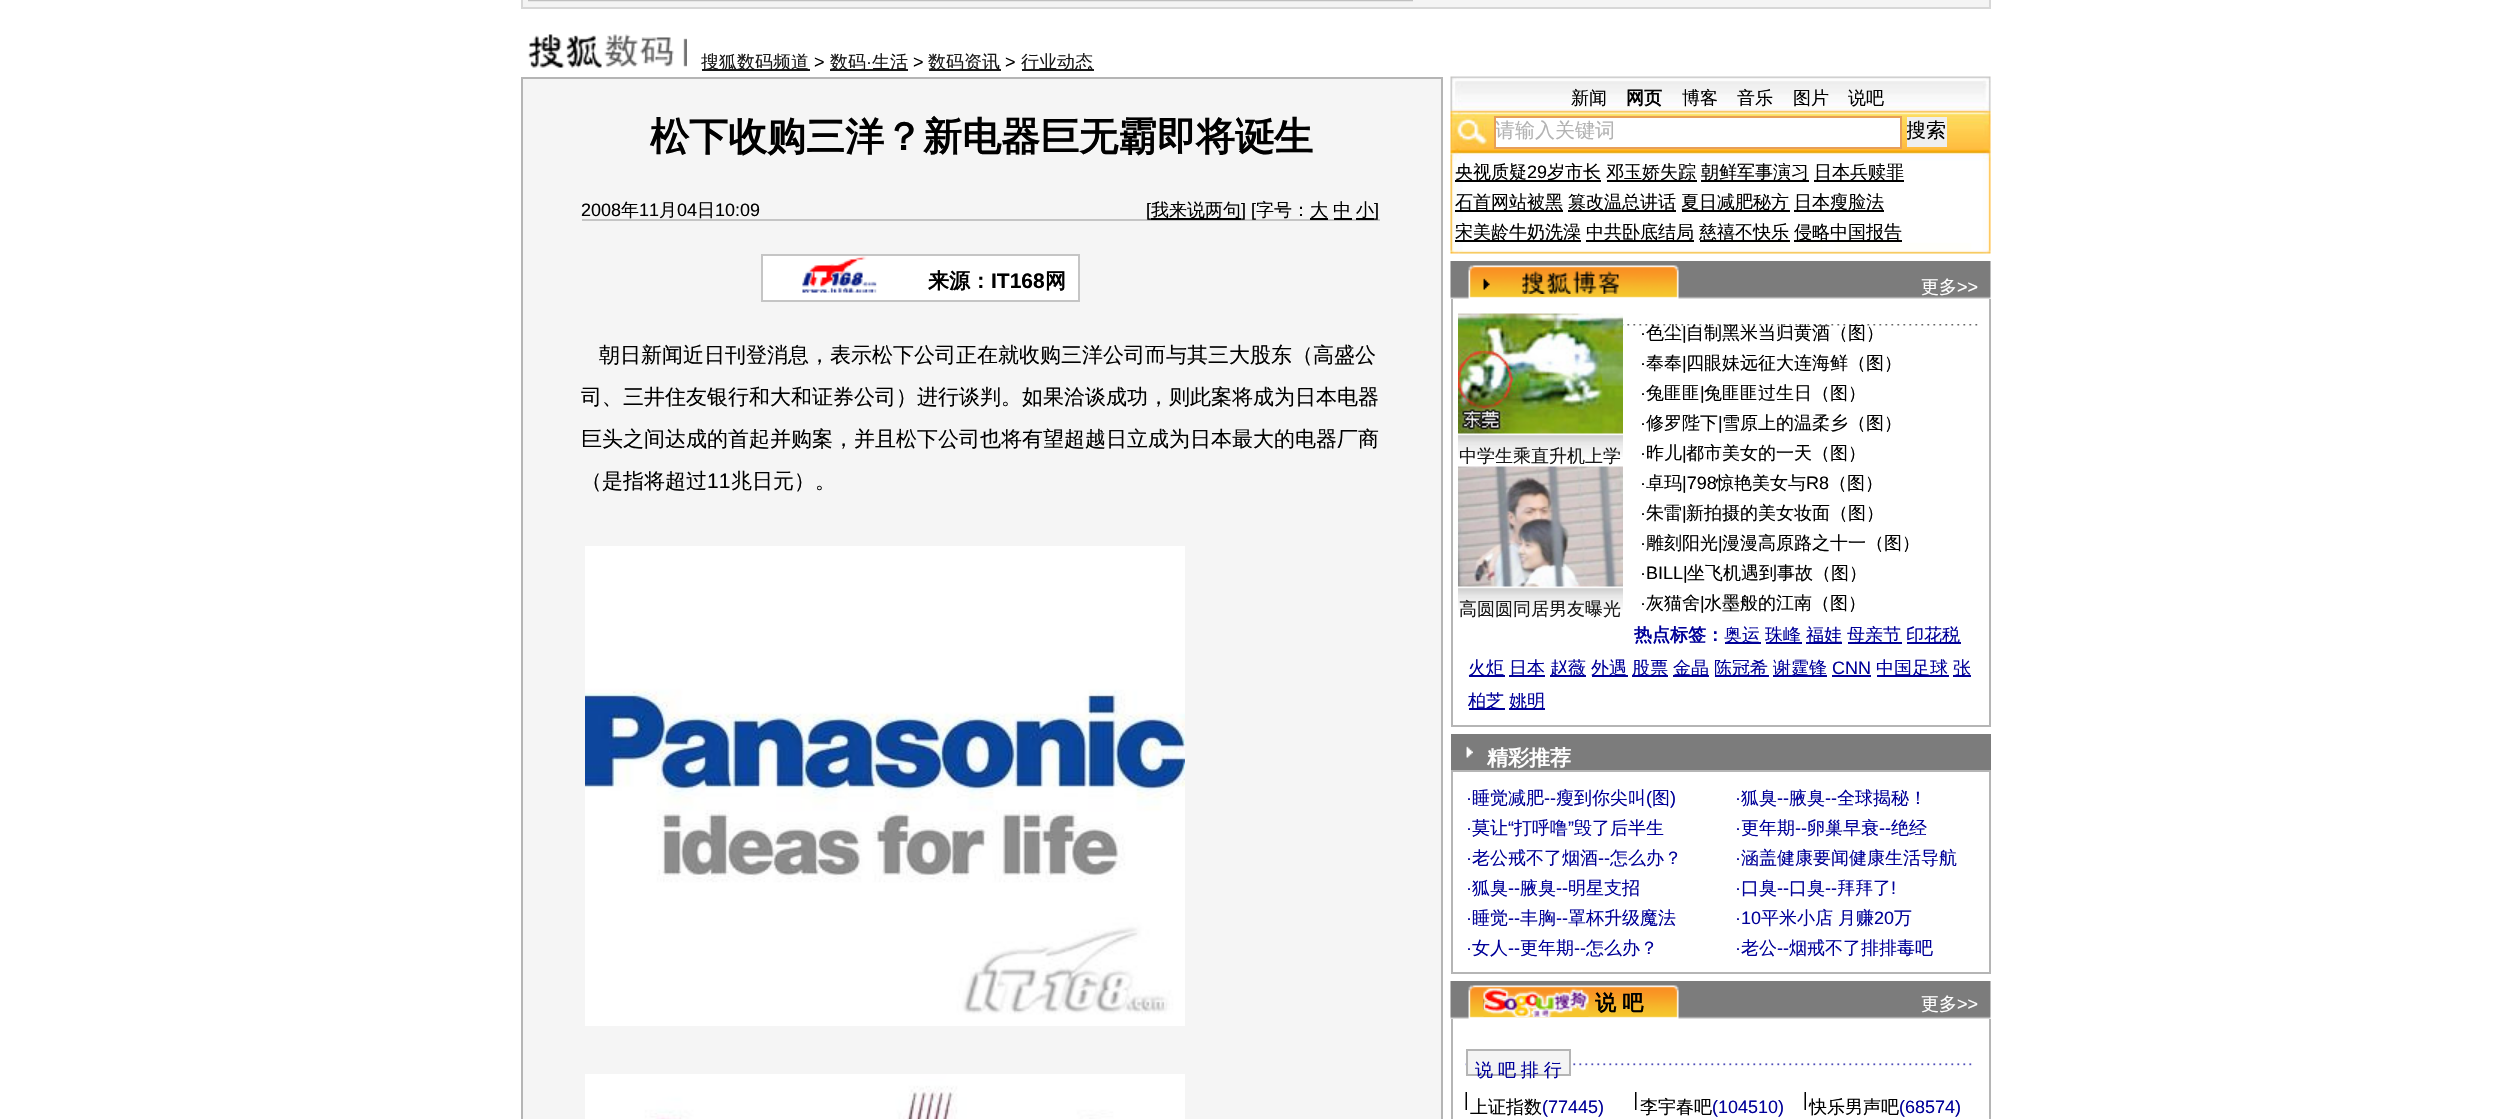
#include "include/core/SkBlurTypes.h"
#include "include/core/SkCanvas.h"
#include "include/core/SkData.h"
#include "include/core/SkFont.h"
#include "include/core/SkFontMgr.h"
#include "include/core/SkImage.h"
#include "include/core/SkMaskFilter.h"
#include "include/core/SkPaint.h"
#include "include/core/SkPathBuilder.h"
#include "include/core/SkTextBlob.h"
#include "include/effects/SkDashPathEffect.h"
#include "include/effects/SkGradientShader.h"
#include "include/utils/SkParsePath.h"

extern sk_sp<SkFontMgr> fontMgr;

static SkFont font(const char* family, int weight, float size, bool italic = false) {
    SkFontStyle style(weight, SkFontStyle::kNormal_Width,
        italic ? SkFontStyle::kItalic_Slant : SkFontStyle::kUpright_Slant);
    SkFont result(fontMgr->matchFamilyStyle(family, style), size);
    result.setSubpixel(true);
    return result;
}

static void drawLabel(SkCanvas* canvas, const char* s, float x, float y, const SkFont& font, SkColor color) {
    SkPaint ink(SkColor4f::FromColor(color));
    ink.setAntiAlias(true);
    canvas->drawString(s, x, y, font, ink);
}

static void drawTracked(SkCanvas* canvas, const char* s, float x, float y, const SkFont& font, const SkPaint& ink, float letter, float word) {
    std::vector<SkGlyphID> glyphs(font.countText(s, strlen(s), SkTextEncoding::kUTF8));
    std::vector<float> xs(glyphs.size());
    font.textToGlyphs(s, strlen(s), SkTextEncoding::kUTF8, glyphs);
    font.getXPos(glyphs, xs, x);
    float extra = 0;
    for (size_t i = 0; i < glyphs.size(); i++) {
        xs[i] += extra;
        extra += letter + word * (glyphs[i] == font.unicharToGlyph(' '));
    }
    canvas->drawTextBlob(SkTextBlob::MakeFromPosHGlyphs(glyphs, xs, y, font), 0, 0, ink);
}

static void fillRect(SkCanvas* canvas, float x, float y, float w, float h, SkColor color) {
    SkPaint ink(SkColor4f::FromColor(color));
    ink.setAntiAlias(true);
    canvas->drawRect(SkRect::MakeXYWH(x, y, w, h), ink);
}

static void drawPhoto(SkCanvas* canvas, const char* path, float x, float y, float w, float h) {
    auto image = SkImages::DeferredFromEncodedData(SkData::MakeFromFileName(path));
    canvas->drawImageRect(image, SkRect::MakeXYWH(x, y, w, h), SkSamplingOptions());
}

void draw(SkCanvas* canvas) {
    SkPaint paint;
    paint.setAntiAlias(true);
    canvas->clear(0xFFFFFFFF);
    paint.setColor(0xFFF4F4F4);
    canvas->drawRect(SkRect::MakeXYWH(522, -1, 1468, 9), paint);
    paint.setStroke(true);
    paint.setStrokeWidth(2);
    paint.setColor(0xFFD7D7D7);
    canvas->drawRect(SkRect::MakeXYWH(522, -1, 1468, 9), paint);
    drawPhoto(canvas, "assets/img1.png", 528, 0, 885, 2);
    drawPhoto(canvas, "assets/img2.png", 528, 34, 159, 34);
    fillRect(canvas, 702, 69, 108, 2, 0xFF191919);
    SkFont font1 = font("WenQuanYi Zen Hei", 500, 18);
    drawLabel(canvas, "搜狐数码频道", 701, 68, font1, 0xFF191919);
    SkFont font2 = font("Liberation Sans", 400, 18);
    drawLabel(canvas, ">", 814, 68, font2, 0xFF000000);
    fillRect(canvas, 830, 69, 78, 2, 0xFF191919);
    drawLabel(canvas, "数码", 830, 68, font1, 0xFF191919);
    drawLabel(canvas, "·", 866, 68, font2, 0xFF191919);
    drawLabel(canvas, "生活", 872, 68, font1, 0xFF191919);
    drawLabel(canvas, ">", 913, 68, font2, 0xFF000000);
    fillRect(canvas, 929, 69, 72, 2, 0xFF191919);
    drawLabel(canvas, "数码资讯", 928, 68, font1, 0xFF191919);
    drawLabel(canvas, ">", 1005, 68, font2, 0xFF000000);
    fillRect(canvas, 1022, 69, 72, 2, 0xFF191919);
    drawLabel(canvas, "行业动态", 1021, 68, font1, 0xFF191919);
    paint.setStroke(false);
    paint.setColor(0xFFF5F5F5);
    canvas->drawRect(SkRect::MakeXYWH(522, 78, 920, 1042), paint);
    paint.setStroke(true);
    paint.setColor(0xFFB5B5B5);
    canvas->drawRect(SkRect::MakeXYWH(522, 78, 920, 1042), paint);
    SkFont font3 = font("WenQuanYi Zen Hei", 700, 39);
    drawLabel(canvas, "松下收购三洋？新电器巨无霸即将诞生", 650, 150, font3, 0xFF000000);
    fillRect(canvas, 582, 219, 798, 2, 0xFFC5C5C5);
    drawLabel(canvas, "2008", 581, 216, font2, 0xFF000000);
    drawLabel(canvas, "年", 621, 216, font1, 0xFF000000);
    drawLabel(canvas, "11", 639, 216, font2, 0xFF000000);
    drawLabel(canvas, "月", 659, 216, font1, 0xFF000000);
    drawLabel(canvas, "04", 677, 216, font2, 0xFF000000);
    drawLabel(canvas, "日", 697, 216, font1, 0xFF000000);
    drawLabel(canvas, "10:09", 715, 216, font2, 0xFF000000);
    drawLabel(canvas, "[", 1146, 216, font2, 0xFF000000);
    fillRect(canvas, 1151, 218, 90, 2, 0xFF000000);
    drawLabel(canvas, "我来说两句", 1151, 216, font1, 0xFF000000);
    drawLabel(canvas, "] [", 1241, 216, font2, 0xFF000000);
    drawLabel(canvas, "字号：", 1256, 216, font1, 0xFF000000);
    fillRect(canvas, 1310, 218, 18, 2, 0xFF000000);
    drawLabel(canvas, "大", 1310, 216, font1, 0xFF000000);
    drawLabel(canvas, "中", 1333, 216, font1, 0xFF000000);
    fillRect(canvas, 1334, 218, 18, 2, 0xFF000000);
    fillRect(canvas, 1356, 218, 18, 2, 0xFF000000);
    drawLabel(canvas, "小", 1356, 216, font1, 0xFF000000);
    drawLabel(canvas, "]", 1374, 216, font2, 0xFF000000);
    paint.setStroke(false);
    paint.setColor(0xFFFFFFFF);
    canvas->drawRect(SkRect::MakeXYWH(762, 255, 317, 46), paint);
    paint.setStroke(true);
    paint.setColor(0xFFC5C5C5);
    canvas->drawRect(SkRect::MakeXYWH(762, 255, 317, 46), paint);
    drawPhoto(canvas, "assets/img3.png", 802, 256, 75, 37);
    SkFont font4 = font("WenQuanYi Zen Hei", 700, 21);
    drawLabel(canvas, "来源：", 928, 288, font4, 0xFF000000);
    SkFont font5 = font("Liberation Sans", 700, 21);
    drawLabel(canvas, "IT168", 991, 288, font5, 0xFF000000);
    drawLabel(canvas, "网", 1045, 288, font4, 0xFF000000);
    SkFont font6 = font("WenQuanYi Zen Hei", 500, 21);
    drawLabel(canvas, "朝日新闻近日刊登消息，表示松下公司正在就收购三洋公司而与其三大股东（高盛公", 599, 362, font6, 0xFF000000);
    drawLabel(canvas, "司、三井住友银行和大和证券公司）进行谈判。如果洽谈成功，则此案将成为日本电器", 581, 404, font6, 0xFF000000);
    drawLabel(canvas, "巨头之间达成的首起并购案，并且松下公司也将有望超越日立成为日本最大的电器厂商", 581, 446, font6, 0xFF000000);
    drawLabel(canvas, "（是指将超过", 581, 488, font6, 0xFF000000);
    SkFont font7 = font("Liberation Sans", 400, 21);
    drawLabel(canvas, "11", 707, 488, font7, 0xFF000000);
    drawLabel(canvas, "兆日元）。", 731, 488, font6, 0xFF000000);
    drawPhoto(canvas, "assets/img4.png", 585, 546, 600, 480);
    drawPhoto(canvas, "assets/img5.png", 585, 1074, 600, 45);
    drawPhoto(canvas, "assets/img6.png", 1450, 76, 541, 178);
    drawLabel(canvas, "新闻", 1571, 104, font1, 0xFF000000);
    SkFont font8 = font("WenQuanYi Zen Hei", 700, 18);
    drawLabel(canvas, "网页", 1626, 104, font8, 0xFF000000);
    drawLabel(canvas, "博客", 1682, 104, font1, 0xFF000000);
    drawLabel(canvas, "音乐", 1737, 104, font1, 0xFF000000);
    drawLabel(canvas, "图片", 1793, 104, font1, 0xFF000000);
    drawLabel(canvas, "说吧", 1848, 104, font1, 0xFF000000);
    paint.setStroke(false);
    paint.setColor(0xFFFFFFFF);
    canvas->drawRect(SkRect::MakeXYWH(1495, 117, 406, 31), paint);
    paint.setStroke(true);
    paint.setColor(0xFFE89F57);
    canvas->drawRect(SkRect::MakeXYWH(1495, 117, 406, 31), paint);
    canvas->save();
    canvas->clipRect(SkRect::MakeXYWH(1496, 119, 405, 27));
    SkFont font9 = font("WenQuanYi Zen Hei", 500, 20);
    drawLabel(canvas, "请输入关键词", 1495, 137, font9, 0xFFB3B3B3);
    canvas->restore();
    fillRect(canvas, 1907, 117, 40, 30, 0xFFEFEFEF);
    canvas->save();
    canvas->clipRect(SkRect::MakeXYWH(1907, 117, 40, 30));
    drawLabel(canvas, "搜索", 1906, 137, font9, 0xFF000000);
    canvas->restore();
    fillRect(canvas, 1455, 180, 146, 2, 0xFF000000);
    drawLabel(canvas, "央视质疑", 1455, 178, font1, 0xFF000000);
    drawLabel(canvas, "29", 1527, 178, font2, 0xFF000000);
    drawLabel(canvas, "岁市长", 1547, 178, font1, 0xFF000000);
    fillRect(canvas, 1607, 180, 90, 2, 0xFF000000);
    drawLabel(canvas, "邓玉娇失踪", 1606, 178, font1, 0xFF000000);
    fillRect(canvas, 1701, 180, 108, 2, 0xFF000000);
    drawLabel(canvas, "朝鲜军事演习", 1701, 178, font1, 0xFF000000);
    fillRect(canvas, 1814, 180, 90, 2, 0xFF000000);
    drawLabel(canvas, "日本兵赎罪", 1814, 178, font1, 0xFF000000);
    fillRect(canvas, 1455, 210, 108, 2, 0xFF000000);
    drawLabel(canvas, "石首网站被黑", 1455, 208, font1, 0xFF000000);
    fillRect(canvas, 1568, 210, 108, 2, 0xFF000000);
    drawLabel(canvas, "篡改温总讲话", 1568, 208, font1, 0xFF000000);
    fillRect(canvas, 1682, 210, 108, 2, 0xFF000000);
    drawLabel(canvas, "夏日减肥秘方", 1681, 208, font1, 0xFF000000);
    fillRect(canvas, 1794, 210, 90, 2, 0xFF000000);
    drawLabel(canvas, "日本瘦脸法", 1794, 208, font1, 0xFF000000);
    fillRect(canvas, 1455, 240, 126, 2, 0xFF000000);
    drawLabel(canvas, "宋美龄牛奶洗澡", 1455, 238, font1, 0xFF000000);
    fillRect(canvas, 1586, 240, 108, 2, 0xFF000000);
    drawLabel(canvas, "中共卧底结局", 1586, 238, font1, 0xFF000000);
    fillRect(canvas, 1700, 240, 90, 2, 0xFF000000);
    drawLabel(canvas, "慈禧不快乐", 1699, 238, font1, 0xFF000000);
    fillRect(canvas, 1794, 240, 108, 2, 0xFF000000);
    drawLabel(canvas, "侵略中国报告", 1794, 238, font1, 0xFF000000);
    drawPhoto(canvas, "assets/img7.png", 1450, 261, 541, 38);
    drawPhoto(canvas, "assets/img8.png", 1522, 271, 97, 23);
    drawLabel(canvas, "更多", 1921, 293, font1, 0xFFFFFFFF);
    drawLabel(canvas, ">>", 1957, 293, font2, 0xFFFFFFFF);
    fillRect(canvas, 1989, 299, 2, 427, 0xFFB5B5B5);
    fillRect(canvas, 1451, 725, 540, 2, 0xFFB5B5B5);
    fillRect(canvas, 1451, 299, 2, 427, 0xFFB5B5B5);
    drawPhoto(canvas, "assets/img9.png", 1458, 313, 165, 121);
    drawPhoto(canvas, "assets/img10.png", 1458, 434, 165, 23);
    drawLabel(canvas, "中学生乘直升机上学", 1459, 462, font1, 0xFF191919);
    drawPhoto(canvas, "assets/img11.png", 1458, 466, 165, 121);
    drawPhoto(canvas, "assets/img10.png", 1458, 587, 165, 23);
    drawLabel(canvas, "高圆圆同居男友曝光", 1459, 615, font1, 0xFF191919);
    drawLabel(canvas, "·", 1640, 339, font2, 0xFF000000);
    drawPhoto(canvas, "assets/img12.png", 1623, 324, 355, 2);
    drawLabel(canvas, "色尘", 1646, 339, font1, 0xFF000000);
    drawLabel(canvas, "|", 1682, 339, font2, 0xFF000000);
    drawLabel(canvas, "自制黑米当归黄酒（图）", 1686, 339, font1, 0xFF000000);
    drawLabel(canvas, "·", 1640, 369, font2, 0xFF000000);
    drawLabel(canvas, "奉奉", 1646, 369, font1, 0xFF000000);
    drawLabel(canvas, "|", 1682, 369, font2, 0xFF000000);
    drawLabel(canvas, "四眼妹远征大连海鲜（图）", 1686, 369, font1, 0xFF000000);
    drawLabel(canvas, "·", 1640, 399, font2, 0xFF000000);
    drawLabel(canvas, "兔匪匪", 1646, 399, font1, 0xFF000000);
    drawLabel(canvas, "|", 1700, 399, font2, 0xFF000000);
    drawLabel(canvas, "兔匪匪过生日（图）", 1704, 399, font1, 0xFF000000);
    drawLabel(canvas, "·", 1640, 429, font2, 0xFF000000);
    drawLabel(canvas, "修罗陛下", 1646, 429, font1, 0xFF000000);
    drawLabel(canvas, "|", 1718, 429, font2, 0xFF000000);
    drawLabel(canvas, "雪原上的温柔乡（图）", 1722, 429, font1, 0xFF000000);
    drawLabel(canvas, "·", 1640, 459, font2, 0xFF000000);
    drawLabel(canvas, "昨儿", 1646, 459, font1, 0xFF000000);
    drawLabel(canvas, "|", 1682, 459, font2, 0xFF000000);
    drawLabel(canvas, "都市美女的一天（图）", 1686, 459, font1, 0xFF000000);
    drawLabel(canvas, "·", 1640, 489, font2, 0xFF000000);
    drawLabel(canvas, "卓玛", 1646, 489, font1, 0xFF000000);
    drawLabel(canvas, "|798", 1682, 489, font2, 0xFF000000);
    drawLabel(canvas, "惊艳美女与", 1716, 489, font1, 0xFF000000);
    drawLabel(canvas, "R8", 1806, 489, font2, 0xFF000000);
    drawLabel(canvas, "（图）", 1829, 489, font1, 0xFF000000);
    drawLabel(canvas, "·", 1640, 519, font2, 0xFF000000);
    drawLabel(canvas, "朱雷", 1646, 519, font1, 0xFF000000);
    drawLabel(canvas, "|", 1682, 519, font2, 0xFF000000);
    drawLabel(canvas, "新拍摄的美女妆面（图）", 1686, 519, font1, 0xFF000000);
    drawLabel(canvas, "·", 1640, 549, font2, 0xFF000000);
    drawLabel(canvas, "雕刻阳光", 1646, 549, font1, 0xFF000000);
    drawLabel(canvas, "|", 1718, 549, font2, 0xFF000000);
    drawLabel(canvas, "漫漫高原路之十一（图）", 1722, 549, font1, 0xFF000000);
    drawLabel(canvas, "·BILL|", 1640, 579, font2, 0xFF000000);
    drawLabel(canvas, "坐飞机遇到事故（图）", 1687, 579, font1, 0xFF000000);
    drawLabel(canvas, "·", 1640, 609, font2, 0xFF000000);
    drawLabel(canvas, "灰猫舍", 1646, 609, font1, 0xFF000000);
    drawLabel(canvas, "|", 1700, 609, font2, 0xFF000000);
    drawLabel(canvas, "水墨般的江南（图）", 1704, 609, font1, 0xFF000000);
    drawLabel(canvas, "热点标签：", 1634, 641, font8, 0xFF000099);
    fillRect(canvas, 1725, 642, 36, 2, 0xFF000099);
    drawLabel(canvas, "奥运", 1724, 641, font1, 0xFF000099);
    fillRect(canvas, 1766, 642, 36, 2, 0xFF000099);
    drawLabel(canvas, "珠峰", 1765, 641, font1, 0xFF000099);
    fillRect(canvas, 1806, 642, 36, 2, 0xFF000099);
    drawLabel(canvas, "福娃", 1806, 641, font1, 0xFF000099);
    fillRect(canvas, 1848, 642, 54, 2, 0xFF000099);
    drawLabel(canvas, "母亲节", 1847, 641, font1, 0xFF000099);
    fillRect(canvas, 1907, 642, 54, 2, 0xFF000099);
    drawLabel(canvas, "印花税", 1906, 641, font1, 0xFF000099);
    fillRect(canvas, 1469, 675, 36, 2, 0xFF000099);
    drawLabel(canvas, "火炬", 1468, 674, font1, 0xFF000099);
    fillRect(canvas, 1509, 675, 36, 2, 0xFF000099);
    drawLabel(canvas, "日本", 1509, 674, font1, 0xFF000099);
    fillRect(canvas, 1550, 675, 36, 2, 0xFF000099);
    drawLabel(canvas, "赵薇", 1550, 674, font1, 0xFF000099);
    fillRect(canvas, 1592, 675, 36, 2, 0xFF000099);
    drawLabel(canvas, "外遇", 1591, 674, font1, 0xFF000099);
    fillRect(canvas, 1632, 675, 36, 2, 0xFF000099);
    drawLabel(canvas, "股票", 1632, 674, font1, 0xFF000099);
    fillRect(canvas, 1673, 675, 36, 2, 0xFF000099);
    drawLabel(canvas, "金晶", 1673, 674, font1, 0xFF000099);
    fillRect(canvas, 1715, 675, 54, 2, 0xFF000099);
    drawLabel(canvas, "陈冠希", 1714, 674, font1, 0xFF000099);
    fillRect(canvas, 1773, 675, 54, 2, 0xFF000099);
    drawLabel(canvas, "谢霆锋", 1773, 674, font1, 0xFF000099);
    drawLabel(canvas, "CNN", 1832, 674, font2, 0xFF000099);
    fillRect(canvas, 1832, 675, 39, 2, 0xFF000099);
    fillRect(canvas, 1877, 675, 72, 2, 0xFF000099);
    drawLabel(canvas, "中国足球", 1876, 674, font1, 0xFF000099);
    fillRect(canvas, 1953, 675, 18, 2, 0xFF000099);
    drawLabel(canvas, "张", 1953, 674, font1, 0xFF000099);
    fillRect(canvas, 1469, 708, 36, 2, 0xFF000099);
    drawLabel(canvas, "柏芝", 1468, 707, font1, 0xFF000099);
    fillRect(canvas, 1509, 708, 36, 2, 0xFF000099);
    drawLabel(canvas, "姚明", 1509, 707, font1, 0xFF000099);
    fillRect(canvas, 1451, 734, 540, 36, 0xFF7C7C7C);
    drawPhoto(canvas, "assets/img13.png", 1466, 746, 7, 12);
    drawLabel(canvas, "精彩推荐", 1487, 765, font4, 0xFFFFFFFF);
    paint.setColor(0xFFB5B5B5);
    canvas->drawRect(SkRect::MakeXYWH(1452, 771, 538, 202), paint);
    drawLabel(canvas, "·", 1466, 804, font2, 0xFF000099);
    drawLabel(canvas, "睡觉减肥", 1472, 804, font1, 0xFF000099);
    drawLabel(canvas, "--", 1544, 804, font2, 0xFF000099);
    drawLabel(canvas, "瘦到你尖叫", 1556, 804, font1, 0xFF000099);
    drawLabel(canvas, "(", 1646, 804, font2, 0xFF000099);
    drawLabel(canvas, "图", 1652, 804, font1, 0xFF000099);
    drawLabel(canvas, ")", 1670, 804, font2, 0xFF000099);
    drawLabel(canvas, "·", 1735, 804, font2, 0xFF000099);
    drawLabel(canvas, "狐臭", 1741, 804, font1, 0xFF000099);
    drawLabel(canvas, "--", 1777, 804, font2, 0xFF000099);
    drawLabel(canvas, "腋臭", 1789, 804, font1, 0xFF000099);
    drawLabel(canvas, "--", 1825, 804, font2, 0xFF000099);
    drawLabel(canvas, "全球揭秘！", 1837, 804, font1, 0xFF000099);
    drawLabel(canvas, "莫让", 1472, 834, font1, 0xFF000099);
    drawLabel(canvas, "“", 1508, 834, font2, 0xFF000099);
    drawLabel(canvas, "打呼噜", 1514, 834, font1, 0xFF000099);
    drawLabel(canvas, "”", 1568, 834, font2, 0xFF000099);
    drawLabel(canvas, "毁了后半生", 1574, 834, font1, 0xFF000099);
    drawLabel(canvas, "·", 1466, 834, font2, 0xFF000099);
    drawLabel(canvas, "·", 1735, 834, font2, 0xFF000099);
    drawLabel(canvas, "更年期", 1741, 834, font1, 0xFF000099);
    drawLabel(canvas, "--", 1795, 834, font2, 0xFF000099);
    drawLabel(canvas, "卵巢早衰", 1807, 834, font1, 0xFF000099);
    drawLabel(canvas, "--", 1879, 834, font2, 0xFF000099);
    drawLabel(canvas, "绝经", 1891, 834, font1, 0xFF000099);
    drawLabel(canvas, "·", 1466, 864, font2, 0xFF000099);
    drawLabel(canvas, "老公戒不了烟酒", 1472, 864, font1, 0xFF000099);
    drawLabel(canvas, "--", 1598, 864, font2, 0xFF000099);
    drawLabel(canvas, "怎么办？", 1610, 864, font1, 0xFF000099);
    drawLabel(canvas, "·", 1735, 864, font2, 0xFF000099);
    drawLabel(canvas, "涵盖健康要闻健康生活导航", 1741, 864, font1, 0xFF000099);
    drawLabel(canvas, "·", 1466, 894, font2, 0xFF000099);
    drawLabel(canvas, "狐臭", 1472, 894, font1, 0xFF000099);
    drawLabel(canvas, "--", 1508, 894, font2, 0xFF000099);
    drawLabel(canvas, "腋臭", 1520, 894, font1, 0xFF000099);
    drawLabel(canvas, "--", 1556, 894, font2, 0xFF000099);
    drawLabel(canvas, "明星支招", 1568, 894, font1, 0xFF000099);
    drawLabel(canvas, "·", 1735, 894, font2, 0xFF000099);
    drawLabel(canvas, "口臭", 1741, 894, font1, 0xFF000099);
    drawLabel(canvas, "--", 1777, 894, font2, 0xFF000099);
    drawLabel(canvas, "口臭", 1789, 894, font1, 0xFF000099);
    drawLabel(canvas, "--", 1825, 894, font2, 0xFF000099);
    drawLabel(canvas, "拜拜了", 1837, 894, font1, 0xFF000099);
    drawLabel(canvas, "!", 1891, 894, font2, 0xFF000099);
    drawLabel(canvas, "·", 1466, 924, font2, 0xFF000099);
    drawLabel(canvas, "睡觉", 1472, 924, font1, 0xFF000099);
    drawLabel(canvas, "--", 1508, 924, font2, 0xFF000099);
    drawLabel(canvas, "丰胸", 1520, 924, font1, 0xFF000099);
    drawLabel(canvas, "--", 1556, 924, font2, 0xFF000099);
    drawLabel(canvas, "罩杯升级魔法", 1568, 924, font1, 0xFF000099);
    drawLabel(canvas, "·10", 1735, 924, font2, 0xFF000099);
    paint.setStroke(false);
    paint.setColor(0xFF000099);
    drawTracked(canvas, "平米小店 月赚", 1761, 924, font1, paint, 0, -0.5f);
    drawLabel(canvas, "20", 1874, 924, font2, 0xFF000099);
    drawLabel(canvas, "万", 1894, 924, font1, 0xFF000099);
    drawLabel(canvas, "·", 1466, 954, font2, 0xFF000099);
    drawLabel(canvas, "女人", 1472, 954, font1, 0xFF000099);
    drawLabel(canvas, "--", 1508, 954, font2, 0xFF000099);
    drawLabel(canvas, "更年期", 1520, 954, font1, 0xFF000099);
    drawLabel(canvas, "--", 1574, 954, font2, 0xFF000099);
    drawLabel(canvas, "怎么办？", 1586, 954, font1, 0xFF000099);
    drawLabel(canvas, "·", 1735, 954, font2, 0xFF000099);
    drawLabel(canvas, "老公", 1741, 954, font1, 0xFF000099);
    drawLabel(canvas, "--", 1777, 954, font2, 0xFF000099);
    drawLabel(canvas, "烟戒不了排排毒吧", 1789, 954, font1, 0xFF000099);
    drawPhoto(canvas, "assets/img7.png", 1450, 981, 541, 38);
    drawPhoto(canvas, "assets/img14.png", 1483, 988, 106, 29);
    drawLabel(canvas, "说 吧", 1595, 1010, font4, 0xFF000000);
    drawLabel(canvas, "更多", 1921, 1010, font1, 0xFFFFFFFF);
    drawLabel(canvas, ">>", 1957, 1010, font2, 0xFFFFFFFF);
    fillRect(canvas, 1989, 1019, 2, 100, 0xFFB5B5B5);
    fillRect(canvas, 1451, 1019, 2, 100, 0xFFB5B5B5);
    drawPhoto(canvas, "assets/img15.png", 1465, 1063, 507, 3);
    paint.setColor(0xFFF4F4F4);
    canvas->drawRect(SkRect::MakeXYWH(1467, 1050, 103, 25), paint);
    paint.setStroke(true);
    paint.setColor(0xFFB5B5B5);
    canvas->drawRect(SkRect::MakeXYWH(1467, 1050, 103, 25), paint);
    paint.setStroke(false);
    paint.setColor(0xFF000099);
    drawTracked(canvas, "说 吧 排 行", 1475, 1076, font1, paint, 0, -0.5f);
    drawPhoto(canvas, "assets/img16.png", 1465, 1092, 2, 18);
    drawLabel(canvas, "上证指数", 1470, 1113, font1, 0xFF000000);
    drawLabel(canvas, "(77445)", 1542, 1113, font2, 0xFF000099);
    drawPhoto(canvas, "assets/img17.png", 1635, 1092, 2, 18);
    drawLabel(canvas, "李宇春吧", 1640, 1113, font1, 0xFF000000);
    drawLabel(canvas, "(104510)", 1712, 1113, font2, 0xFF000099);
    drawPhoto(canvas, "assets/img16.png", 1804, 1092, 2, 18);
    drawLabel(canvas, "快乐男声吧", 1809, 1113, font1, 0xFF000000);
    drawLabel(canvas, "(68574)", 1899, 1113, font2, 0xFF000099);
}
